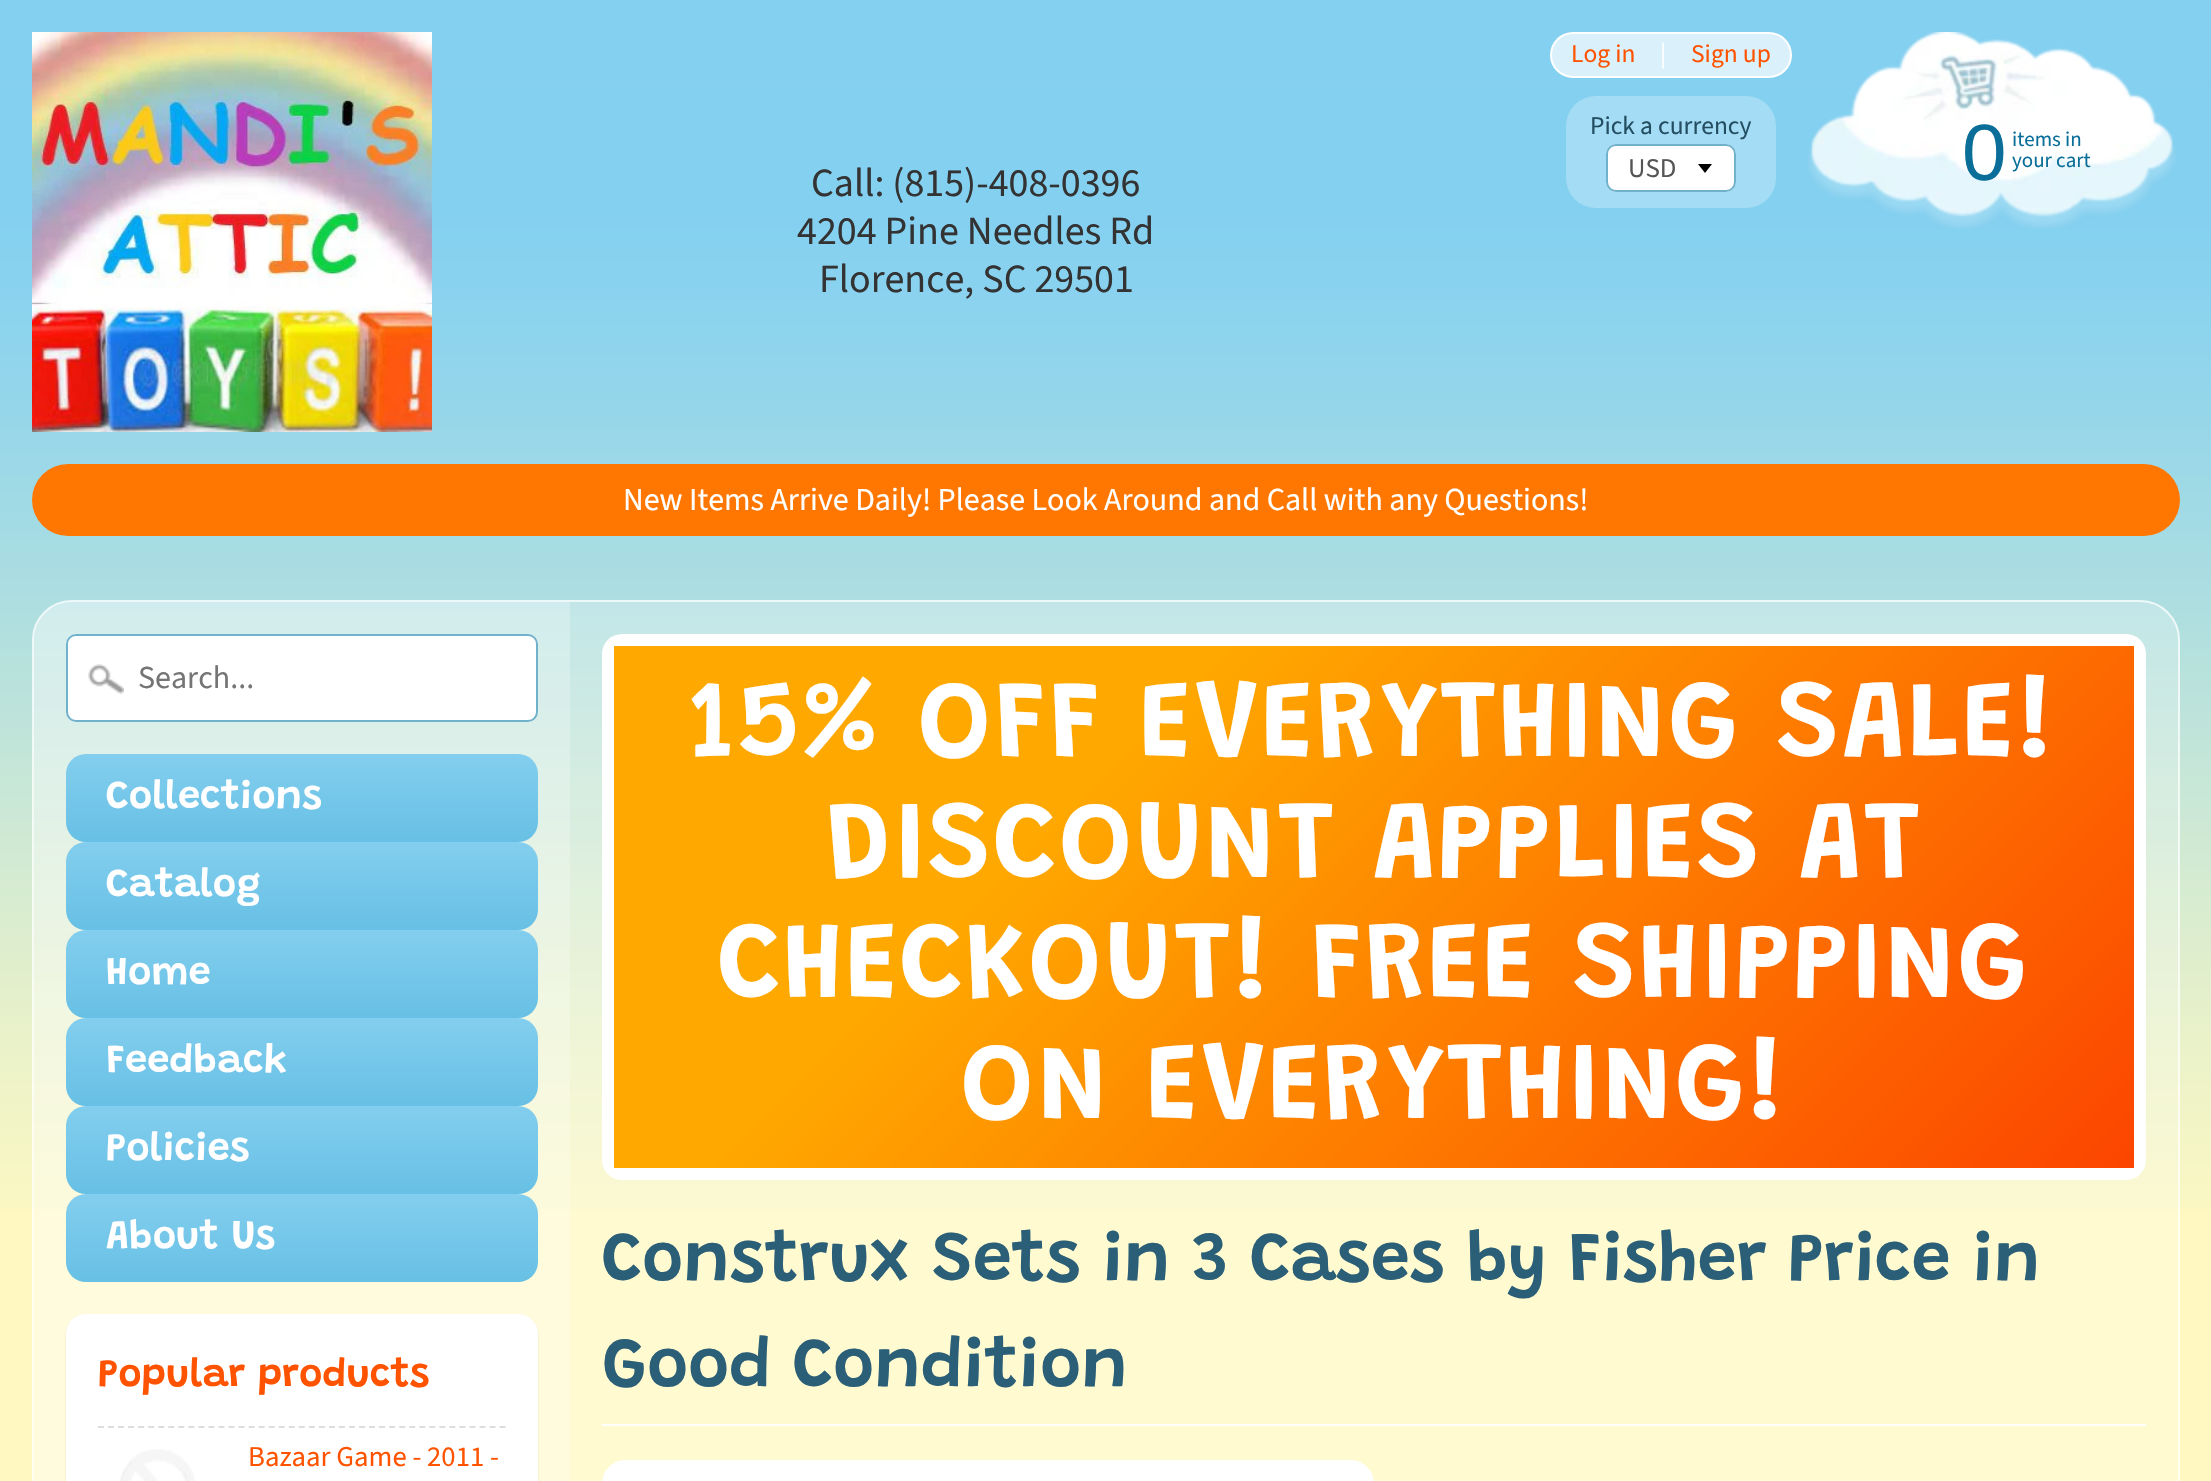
#include "include/core/SkBlurTypes.h"
#include "include/core/SkCanvas.h"
#include "include/core/SkData.h"
#include "include/core/SkFont.h"
#include "include/core/SkFontMgr.h"
#include "include/core/SkImage.h"
#include "include/core/SkMaskFilter.h"
#include "include/core/SkPaint.h"
#include "include/core/SkPathBuilder.h"
#include "include/core/SkTextBlob.h"
#include "include/effects/SkDashPathEffect.h"
#include "include/effects/SkGradientShader.h"
#include "include/utils/SkParsePath.h"

extern sk_sp<SkFontMgr> fontMgr;

static SkFont font(const char* family, int weight, float size, bool italic = false) {
    SkFontStyle style(weight, SkFontStyle::kNormal_Width,
        italic ? SkFontStyle::kItalic_Slant : SkFontStyle::kUpright_Slant);
    SkFont result(fontMgr->matchFamilyStyle(family, style), size);
    result.setSubpixel(true);
    return result;
}

static void drawLabel(SkCanvas* canvas, const char* s, float x, float y, const SkFont& font, SkColor color) {
    SkPaint ink(SkColor4f::FromColor(color));
    ink.setAntiAlias(true);
    canvas->drawString(s, x, y, font, ink);
}

static void drawTracked(SkCanvas* canvas, const char* s, float x, float y, const SkFont& font, const SkPaint& ink, float letter, float word) {
    std::vector<SkGlyphID> glyphs(font.countText(s, strlen(s), SkTextEncoding::kUTF8));
    std::vector<float> xs(glyphs.size());
    font.textToGlyphs(s, strlen(s), SkTextEncoding::kUTF8, glyphs);
    font.getXPos(glyphs, xs, x);
    float extra = 0;
    for (size_t i = 0; i < glyphs.size(); i++) {
        xs[i] += extra;
        extra += letter + word * (glyphs[i] == font.unicharToGlyph(' '));
    }
    canvas->drawTextBlob(SkTextBlob::MakeFromPosHGlyphs(glyphs, xs, y, font), 0, 0, ink);
}

static void fillRect(SkCanvas* canvas, float x, float y, float w, float h, SkColor color) {
    SkPaint ink(SkColor4f::FromColor(color));
    ink.setAntiAlias(true);
    canvas->drawRect(SkRect::MakeXYWH(x, y, w, h), ink);
}

static void fillRRect(SkCanvas* canvas, float x, float y, float w, float h, float radius, SkColor color) {
    SkPaint ink(SkColor4f::FromColor(color));
    ink.setAntiAlias(true);
    canvas->drawRoundRect(SkRect::MakeXYWH(x, y, w, h), radius, radius, ink);
}

static void drawPhoto(SkCanvas* canvas, const char* path, float x, float y, float w, float h) {
    auto image = SkImages::DeferredFromEncodedData(SkData::MakeFromFileName(path));
    canvas->drawImageRect(image, SkRect::MakeXYWH(x, y, w, h), SkSamplingOptions());
}

static SkPath parsePath(const char* data, bool evenOdd = false) {
    SkPath result = *SkParsePath::FromSVGString(data);
    if (evenOdd) result.setFillType(SkPathFillType::kEvenOdd);
    return result;
}

void draw(SkCanvas* canvas) {
    SkPaint paint;
    paint.setAntiAlias(true);
    canvas->clear(0xFFFFF9C1);
    drawPhoto(canvas, "assets/img1.png", 0, 0, 2211, 1209);
    paint.setColor(0xFFDAF1FB);
    canvas->drawRoundRect(SkRect::MakeXYWH(1551, 33, 240, 44), 22, 22, paint);
    paint.setStroke(true);
    paint.setStrokeWidth(2);
    paint.setColor(0xFFFFFFFF);
    canvas->drawRoundRect(SkRect::MakeXYWH(1551, 33, 240, 44), 22, 22, paint);
    SkFont font1 = font("Source Sans Pro", 400, 25.5f);
    drawLabel(canvas, "Log in", 1571, 62, font1, 0xFFFF5300);
    drawLabel(canvas, "|", 1660, 62, font1, 0xFFFFFFFF);
    drawLabel(canvas, "Sign up", 1691, 62, font1, 0xFFFF5300);
    drawPhoto(canvas, "assets/img2.png", 1808, 32, 368, 197);
    SkFont font2 = font("Liberation Sans", 400, 80);
    drawLabel(canvas, "0", 1962, 180, font2, 0xFF0A6E99);
    SkFont font3 = font("Source Sans Pro", 400, 21);
    drawLabel(canvas, "items in", 2012, 146, font3, 0xFF0A6E99);
    drawLabel(canvas, "your cart", 2012, 167, font3, 0xFF0A6E99);
    drawPhoto(canvas, "assets/img3.png", 32, 32, 400, 400);
    SkFont font4 = font("Source Sans Pro", 400, 40);
    drawLabel(canvas, "Call: (815)-408-0396", 811, 196, font4, 0xFF333333);
    drawLabel(canvas, "4204 Pine Needles Rd", 797, 244, font4, 0xFF333333);
    drawLabel(canvas, "Florence, SC 29501", 819, 292, font4, 0xFF333333);
    fillRRect(canvas, 32, 464, 2148, 72, 36, 0xFFFF7700);
    SkFont font5 = font("Source Sans Pro", 400, 32);
    drawLabel(canvas, "New Items Arrive Daily! Please Look Around and Call with any Questions!", 623, 510, font5, 0xFFFFFFFF);
    fillRRect(canvas, 1566, 96, 210, 112, 30, 0xFFA3DCF4);
    drawLabel(canvas, "Pick a currency", 1590, 134, font1, 0xFF234D61);
    fillRRect(canvas, 1606, 144, 130, 48, 10, 0xFFFFFFFF);
    paint.setStroke(false);
    paint.setColor(0xFF000000);
    canvas->drawPath(parsePath("M1698 164L1705 173L1712 164Z"), paint);
    paint.setStroke(true);
    paint.setColor(0xFF70B1CC);
    canvas->drawRoundRect(SkRect::MakeXYWH(1607, 145, 128, 46), 9, 9, paint);
    SkFont font6 = font("Source Sans Pro", 400, 27);
    drawLabel(canvas, "USD", 1628, 177, font6, 0xFF555555);
    fillRRect(canvas, 32, 600, 2148, 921, 40, 0x40FFFFFF);
    paint.setColor(0xB3FFFFFF);
    canvas->drawRoundRect(SkRect::MakeXYWH(33, 601, 2146, 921), 39, 39, paint);
    paint.setStroke(false);
    paint.setColor(0x40FFFFFF);
    canvas->drawPath(parsePath("M72 602H570V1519H34V640C34 619 51 602 72 602Z"), paint);
    fillRRect(canvas, 66, 634, 472, 88, 10, 0xFFFFFFFF);
    drawPhoto(canvas, "assets/img4.png", 88, 664, 36, 30);
    paint.setStroke(true);
    paint.setColor(0xFF70B1CC);
    canvas->drawRoundRect(SkRect::MakeXYWH(67, 635, 470, 86), 9, 9, paint);
    drawLabel(canvas, "Search...", 138, 688, font5, 0xFF757575);
    paint.setStroke(false);
    {
        const SkColor colors[] = {0xFF83CEEE, 0xFF67C0E5};
        const float stops[] = {0, 1};
        const SkPoint ends[] = {{302, 754}, {302, 842}};
        paint.setShader(SkGradientShader::MakeLinear(ends, colors, stops, 2, SkTileMode::kClamp));
        paint.setAlpha(255);
    }
    canvas->drawRoundRect(SkRect::MakeXYWH(66, 754, 472, 88), 20, 20, paint);
    SkFont font7 = font("Grandstander", 600, 40);
    drawLabel(canvas, "Collections", 106, 808, font7, 0xFFFFFFFF);
    {
        const SkColor colors[] = {0xFF83CEEE, 0xFF67C0E5};
        const float stops[] = {0, 1};
        const SkPoint ends[] = {{302, 842}, {302, 930}};
        paint.setShader(SkGradientShader::MakeLinear(ends, colors, stops, 2, SkTileMode::kClamp));
        paint.setAlpha(255);
    }
    canvas->drawRoundRect(SkRect::MakeXYWH(66, 842, 472, 88), 20, 20, paint);
    drawLabel(canvas, "Catalog", 106, 896, font7, 0xFFFFFFFF);
    {
        const SkColor colors[] = {0xFF83CEEE, 0xFF67C0E5};
        const float stops[] = {0, 1};
        const SkPoint ends[] = {{302, 930}, {302, 1018}};
        paint.setShader(SkGradientShader::MakeLinear(ends, colors, stops, 2, SkTileMode::kClamp));
        paint.setAlpha(255);
    }
    canvas->drawRoundRect(SkRect::MakeXYWH(66, 930, 472, 88), 20, 20, paint);
    drawLabel(canvas, "Home", 106, 984, font7, 0xFFFFFFFF);
    {
        const SkColor colors[] = {0xFF83CEEE, 0xFF67C0E5};
        const float stops[] = {0, 1};
        const SkPoint ends[] = {{302, 1018}, {302, 1106}};
        paint.setShader(SkGradientShader::MakeLinear(ends, colors, stops, 2, SkTileMode::kClamp));
        paint.setAlpha(255);
    }
    canvas->drawRoundRect(SkRect::MakeXYWH(66, 1018, 472, 88), 20, 20, paint);
    drawLabel(canvas, "Feedback", 106, 1072, font7, 0xFFFFFFFF);
    {
        const SkColor colors[] = {0xFF83CEEE, 0xFF67C0E5};
        const float stops[] = {0, 1};
        const SkPoint ends[] = {{302, 1106}, {302, 1194}};
        paint.setShader(SkGradientShader::MakeLinear(ends, colors, stops, 2, SkTileMode::kClamp));
        paint.setAlpha(255);
    }
    canvas->drawRoundRect(SkRect::MakeXYWH(66, 1106, 472, 88), 20, 20, paint);
    drawLabel(canvas, "Policies", 106, 1160, font7, 0xFFFFFFFF);
    {
        const SkColor colors[] = {0xFF83CEEE, 0xFF67C0E5};
        const float stops[] = {0, 1};
        const SkPoint ends[] = {{302, 1194}, {302, 1282}};
        paint.setShader(SkGradientShader::MakeLinear(ends, colors, stops, 2, SkTileMode::kClamp));
        paint.setAlpha(255);
    }
    canvas->drawRoundRect(SkRect::MakeXYWH(66, 1194, 472, 88), 20, 20, paint);
    drawLabel(canvas, "About Us", 106, 1248, font7, 0xFFFFFFFF);
    paint.setShader(nullptr);
    paint.setColor(0x1A000000);
    paint.setMaskFilter(SkMaskFilter::MakeBlur(kNormal_SkBlurStyle, 1));
    canvas->drawRoundRect(SkRect::MakeXYWH(66, 1316, 472, 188), 20, 20, paint);
    paint.setMaskFilter(nullptr);
    fillRRect(canvas, 66, 1314, 472, 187, 20, 0xFFFFFFFF);
    drawLabel(canvas, "Popular products", 98, 1386, font7, 0xFFFF5300);
    paint.setStroke(true);
    paint.setColor(0xFFDDDDDD);
    paint.setPathEffect(SkDashPathEffect::Make({{6, 4.04f}}, 0));
    canvas->drawPath(parsePath("M98 1427H506"), paint);
    paint.setPathEffect(nullptr);
    drawPhoto(canvas, "assets/img5.png", 120, 1449, 76, 32);
    SkFont font8 = font("Source Sans Pro", 400, 28.75f);
    drawLabel(canvas, "Bazaar Game - 2011 -", 248, 1466, font8, 0xFFFF5300);
    fillRRect(canvas, 602, 634, 1544, 546, 20, 0xFFFFFFFF);
    paint.setStroke(false);
    {
        const SkColor colors[] = {0xFFFFA800, 0xFFFC4500};
        const float stops[] = {0.3f, 1};
        const SkPoint ends[] = {{864, 397}, {1885, 1418}};
        paint.setShader(SkGradientShader::MakeLinear(ends, colors, stops, 2, SkTileMode::kClamp));
        paint.setAlpha(255);
    }
    canvas->drawRect(SkRect::MakeXYWH(614, 646, 1520, 522), paint);
    SkFont font9 = font("Grandstander", 600, 110.6f);
    paint.setShader(nullptr);
    paint.setColor(0xFFFFFFFF);
    drawTracked(canvas, "15% OFF EVERYTHING SALE!", 691, 756, font9, paint, 2, 0);
    drawTracked(canvas, "DISCOUNT APPLIES AT", 826, 877, font9, paint, 2, 0);
    drawTracked(canvas, "CHECKOUT! FREE SHIPPING", 718, 997, font9, paint, 2, 0);
    drawTracked(canvas, "ON EVERYTHING!", 960, 1118, font9, paint, 2, 0);
    fillRect(canvas, 602, 1424, 1544, 2, 0xFFFFFFFF);
    SkFont font10 = font("Grandstander", 600, 70.4f);
    drawLabel(canvas, "Construx Sets in 3 Cases by Fisher Price in", 602, 1280, font10, 0xFF2B5F77);
    drawLabel(canvas, "Good Condition", 602, 1386, font10, 0xFF2B5F77);
    canvas->drawRoundRect(SkRect::MakeXYWH(603, 1461, 770, 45), 23, 23, paint);
    paint.setStroke(true);
    canvas->drawRoundRect(SkRect::MakeXYWH(603, 1461, 770, 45), 23, 23, paint);
}
